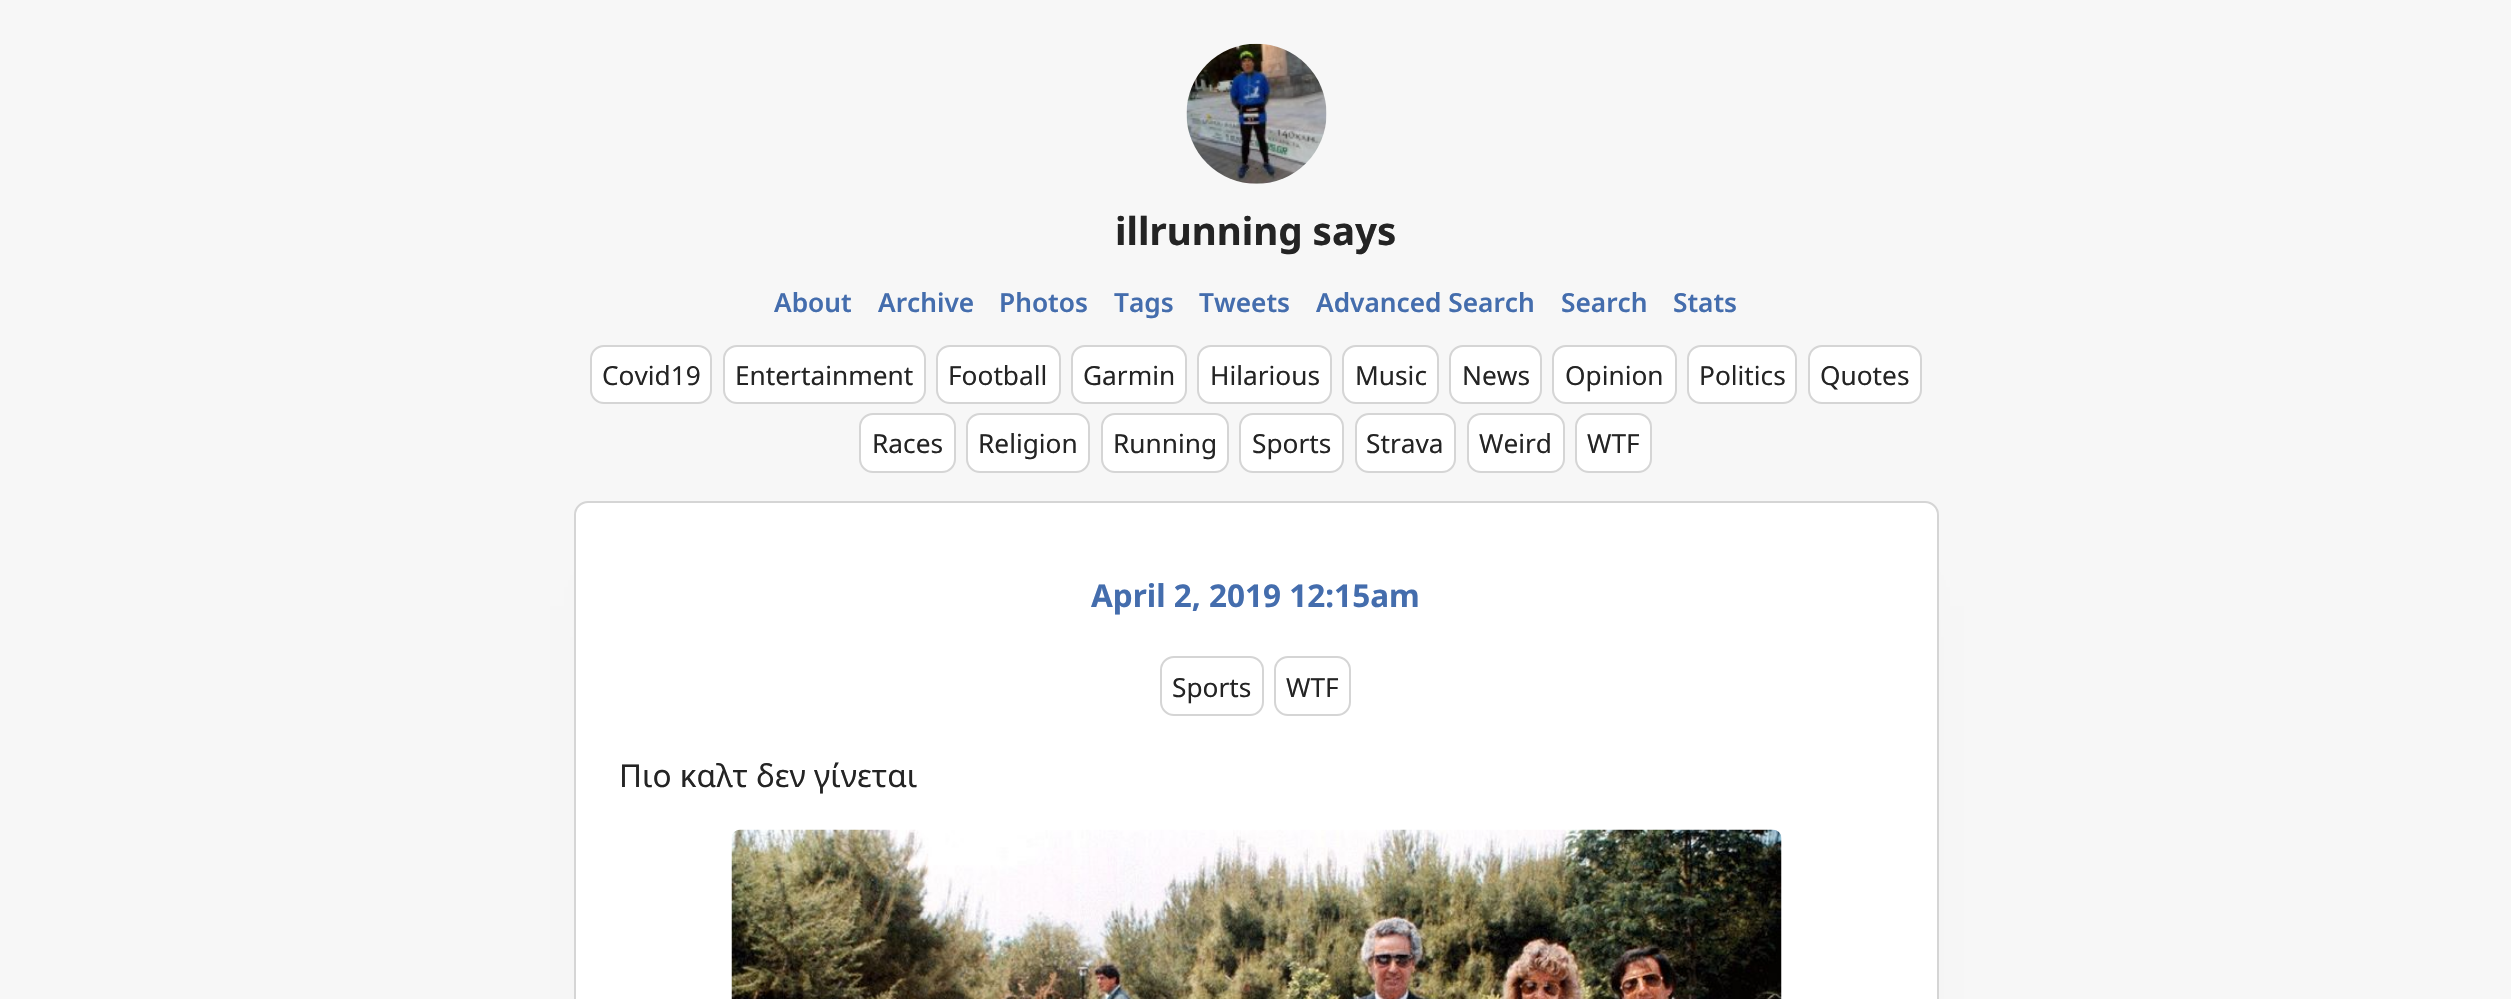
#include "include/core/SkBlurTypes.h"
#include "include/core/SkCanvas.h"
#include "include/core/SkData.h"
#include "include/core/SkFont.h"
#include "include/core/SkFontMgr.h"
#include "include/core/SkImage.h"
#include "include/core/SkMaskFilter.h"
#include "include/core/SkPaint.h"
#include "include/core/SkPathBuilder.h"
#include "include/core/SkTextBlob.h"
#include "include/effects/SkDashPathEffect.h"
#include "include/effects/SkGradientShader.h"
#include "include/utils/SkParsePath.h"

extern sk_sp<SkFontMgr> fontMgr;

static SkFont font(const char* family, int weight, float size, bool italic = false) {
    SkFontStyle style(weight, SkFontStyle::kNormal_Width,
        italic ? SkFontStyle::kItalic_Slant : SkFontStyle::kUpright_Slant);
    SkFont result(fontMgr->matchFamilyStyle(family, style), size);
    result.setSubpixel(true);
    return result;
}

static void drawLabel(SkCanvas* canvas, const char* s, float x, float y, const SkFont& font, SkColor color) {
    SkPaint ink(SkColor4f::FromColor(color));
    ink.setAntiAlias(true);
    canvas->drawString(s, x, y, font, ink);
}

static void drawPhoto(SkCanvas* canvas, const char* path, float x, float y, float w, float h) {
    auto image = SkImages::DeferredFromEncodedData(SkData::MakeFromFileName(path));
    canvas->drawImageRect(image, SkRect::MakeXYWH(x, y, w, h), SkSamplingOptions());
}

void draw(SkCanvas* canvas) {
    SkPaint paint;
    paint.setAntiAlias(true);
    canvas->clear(0xFFF7F7F7);
    drawPhoto(canvas, "assets/img1.png", 1186, 43, 141, 141);
    SkFont font1 = font("Noto Sans", 700, 38.5f);
    drawLabel(canvas, "illrunning says", 1115, 245, font1, 0xFF242424);
    SkFont font2 = font("Noto Sans", 600, 26.25f);
    drawLabel(canvas, "About", 774, 312, font2, 0xFF446DAD);
    drawLabel(canvas, "Archive", 878, 312, font2, 0xFF446DAD);
    drawLabel(canvas, "Photos", 999, 312, font2, 0xFF446DAD);
    drawLabel(canvas, "Tags", 1114, 312, font2, 0xFF446DAD);
    drawLabel(canvas, "Tweets", 1199, 312, font2, 0xFF446DAD);
    drawLabel(canvas, "Advanced Search", 1316, 312, font2, 0xFF446DAD);
    drawLabel(canvas, "Search", 1561, 312, font2, 0xFF446DAD);
    drawLabel(canvas, "Stats", 1673, 312, font2, 0xFF446DAD);
    paint.setColor(0xFFFFFFFF);
    canvas->drawRoundRect(SkRect::MakeXYWH(591, 346, 120, 57), 13, 13, paint);
    paint.setStroke(true);
    paint.setStrokeWidth(2);
    paint.setColor(0xFFD5D5D5);
    canvas->drawRoundRect(SkRect::MakeXYWH(591, 346, 120, 57), 13, 13, paint);
    SkFont font3 = font("Noto Sans", 400, 26.25f);
    drawLabel(canvas, "Covid19", 602, 385, font3, 0xFF242424);
    paint.setStroke(false);
    paint.setColor(0xFFFFFFFF);
    canvas->drawRoundRect(SkRect::MakeXYWH(724, 346, 201, 57), 13, 13, paint);
    paint.setStroke(true);
    paint.setColor(0xFFD5D5D5);
    canvas->drawRoundRect(SkRect::MakeXYWH(724, 346, 201, 57), 13, 13, paint);
    drawLabel(canvas, "Entertainment", 735, 385, font3, 0xFF242424);
    paint.setStroke(false);
    paint.setColor(0xFFFFFFFF);
    canvas->drawRoundRect(SkRect::MakeXYWH(937, 346, 123, 57), 13, 13, paint);
    paint.setStroke(true);
    paint.setColor(0xFFD5D5D5);
    canvas->drawRoundRect(SkRect::MakeXYWH(937, 346, 123, 57), 13, 13, paint);
    drawLabel(canvas, "Football", 948, 385, font3, 0xFF242424);
    paint.setStroke(false);
    paint.setColor(0xFFFFFFFF);
    canvas->drawRoundRect(SkRect::MakeXYWH(1072, 346, 114, 57), 13, 13, paint);
    paint.setStroke(true);
    paint.setColor(0xFFD5D5D5);
    canvas->drawRoundRect(SkRect::MakeXYWH(1072, 346, 114, 57), 13, 13, paint);
    drawLabel(canvas, "Garmin", 1083, 385, font3, 0xFF242424);
    paint.setStroke(false);
    paint.setColor(0xFFFFFFFF);
    canvas->drawRoundRect(SkRect::MakeXYWH(1198, 346, 133, 57), 13, 13, paint);
    paint.setStroke(true);
    paint.setColor(0xFFD5D5D5);
    canvas->drawRoundRect(SkRect::MakeXYWH(1198, 346, 133, 57), 13, 13, paint);
    drawLabel(canvas, "Hilarious", 1210, 385, font3, 0xFF242424);
    paint.setStroke(false);
    paint.setColor(0xFFFFFFFF);
    canvas->drawRoundRect(SkRect::MakeXYWH(1343, 346, 95, 57), 13, 13, paint);
    paint.setStroke(true);
    paint.setColor(0xFFD5D5D5);
    canvas->drawRoundRect(SkRect::MakeXYWH(1343, 346, 95, 57), 13, 13, paint);
    drawLabel(canvas, "Music", 1355, 385, font3, 0xFF242424);
    paint.setStroke(false);
    paint.setColor(0xFFFFFFFF);
    canvas->drawRoundRect(SkRect::MakeXYWH(1450, 346, 91, 57), 13, 13, paint);
    paint.setStroke(true);
    paint.setColor(0xFFD5D5D5);
    canvas->drawRoundRect(SkRect::MakeXYWH(1450, 346, 91, 57), 13, 13, paint);
    drawLabel(canvas, "News", 1462, 385, font3, 0xFF242424);
    paint.setStroke(false);
    paint.setColor(0xFFFFFFFF);
    canvas->drawRoundRect(SkRect::MakeXYWH(1553, 346, 123, 57), 13, 13, paint);
    paint.setStroke(true);
    paint.setColor(0xFFD5D5D5);
    canvas->drawRoundRect(SkRect::MakeXYWH(1553, 346, 123, 57), 13, 13, paint);
    drawLabel(canvas, "Opinion", 1565, 385, font3, 0xFF242424);
    paint.setStroke(false);
    paint.setColor(0xFFFFFFFF);
    canvas->drawRoundRect(SkRect::MakeXYWH(1688, 346, 108, 57), 13, 13, paint);
    paint.setStroke(true);
    paint.setColor(0xFFD5D5D5);
    canvas->drawRoundRect(SkRect::MakeXYWH(1688, 346, 108, 57), 13, 13, paint);
    drawLabel(canvas, "Politics", 1699, 385, font3, 0xFF242424);
    paint.setStroke(false);
    paint.setColor(0xFFFFFFFF);
    canvas->drawRoundRect(SkRect::MakeXYWH(1809, 346, 112, 57), 13, 13, paint);
    paint.setStroke(true);
    paint.setColor(0xFFD5D5D5);
    canvas->drawRoundRect(SkRect::MakeXYWH(1809, 346, 112, 57), 13, 13, paint);
    drawLabel(canvas, "Quotes", 1820, 385, font3, 0xFF242424);
    paint.setStroke(false);
    paint.setColor(0xFFFFFFFF);
    canvas->drawRoundRect(SkRect::MakeXYWH(860, 414, 95, 58), 13, 13, paint);
    paint.setStroke(true);
    paint.setColor(0xFFD5D5D5);
    canvas->drawRoundRect(SkRect::MakeXYWH(860, 414, 95, 58), 13, 13, paint);
    drawLabel(canvas, "Races", 872, 453, font3, 0xFF242424);
    paint.setStroke(false);
    paint.setColor(0xFFFFFFFF);
    canvas->drawRoundRect(SkRect::MakeXYWH(967, 414, 122, 58), 13, 13, paint);
    paint.setStroke(true);
    paint.setColor(0xFFD5D5D5);
    canvas->drawRoundRect(SkRect::MakeXYWH(967, 414, 122, 58), 13, 13, paint);
    drawLabel(canvas, "Religion", 978, 453, font3, 0xFF242424);
    paint.setStroke(false);
    paint.setColor(0xFFFFFFFF);
    canvas->drawRoundRect(SkRect::MakeXYWH(1102, 414, 126, 58), 13, 13, paint);
    paint.setStroke(true);
    paint.setColor(0xFFD5D5D5);
    canvas->drawRoundRect(SkRect::MakeXYWH(1102, 414, 126, 58), 13, 13, paint);
    drawLabel(canvas, "Running", 1113, 453, font3, 0xFF242424);
    paint.setStroke(false);
    paint.setColor(0xFFFFFFFF);
    canvas->drawRoundRect(SkRect::MakeXYWH(1240, 414, 103, 58), 13, 13, paint);
    paint.setStroke(true);
    paint.setColor(0xFFD5D5D5);
    canvas->drawRoundRect(SkRect::MakeXYWH(1240, 414, 103, 58), 13, 13, paint);
    drawLabel(canvas, "Sports", 1252, 453, font3, 0xFF242424);
    paint.setStroke(false);
    paint.setColor(0xFFFFFFFF);
    canvas->drawRoundRect(SkRect::MakeXYWH(1356, 414, 99, 58), 13, 13, paint);
    paint.setStroke(true);
    paint.setColor(0xFFD5D5D5);
    canvas->drawRoundRect(SkRect::MakeXYWH(1356, 414, 99, 58), 13, 13, paint);
    drawLabel(canvas, "Strava", 1366, 453, font3, 0xFF242424);
    paint.setStroke(false);
    paint.setColor(0xFFFFFFFF);
    canvas->drawRoundRect(SkRect::MakeXYWH(1468, 414, 96, 58), 13, 13, paint);
    paint.setStroke(true);
    paint.setColor(0xFFD5D5D5);
    canvas->drawRoundRect(SkRect::MakeXYWH(1468, 414, 96, 58), 13, 13, paint);
    drawLabel(canvas, "Weird", 1479, 453, font3, 0xFF242424);
    paint.setStroke(false);
    paint.setColor(0xFFFFFFFF);
    canvas->drawRoundRect(SkRect::MakeXYWH(1576, 414, 75, 58), 13, 13, paint);
    paint.setStroke(true);
    paint.setColor(0xFFD5D5D5);
    canvas->drawRoundRect(SkRect::MakeXYWH(1576, 414, 75, 58), 13, 13, paint);
    drawLabel(canvas, "WTF", 1587, 453, font3, 0xFF242424);
    paint.setStroke(false);
    paint.setColor(0xFFA7A5A5);
    paint.setMaskFilter(SkMaskFilter::MakeBlur(kNormal_SkBlurStyle, 26));
    canvas->drawRect(SkRect::MakeXYWH(627, 606, 1260, 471), paint);
    paint.setMaskFilter(nullptr);
    paint.setColor(0xFFFFFFFF);
    canvas->drawRoundRect(SkRect::MakeXYWH(575, 502, 1363, 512), 13, 13, paint);
    paint.setStroke(true);
    paint.setColor(0xFFD5D5D5);
    canvas->drawRoundRect(SkRect::MakeXYWH(575, 502, 1363, 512), 13, 13, paint);
    SkFont font4 = font("Noto Sans", 700, 31.5f);
    drawLabel(canvas, "April 2, 2019 12:15am", 1091, 607, font4, 0xFF446DAD);
    canvas->drawRoundRect(SkRect::MakeXYWH(1161, 657, 102, 58), 13, 13, paint);
    drawLabel(canvas, "Sports", 1172, 697, font3, 0xFF242424);
    canvas->drawRoundRect(SkRect::MakeXYWH(1275, 657, 75, 58), 13, 13, paint);
    drawLabel(canvas, "WTF", 1286, 697, font3, 0xFF242424);
    SkFont font5 = font("Noto Sans", 400, 31.5f);
    drawLabel(canvas, "Πιο καλτ δεν γίνεται", 619, 787, font5, 0xFF242424);
    drawPhoto(canvas, "assets/img2.png", 731, 829, 1051, 170);
}
